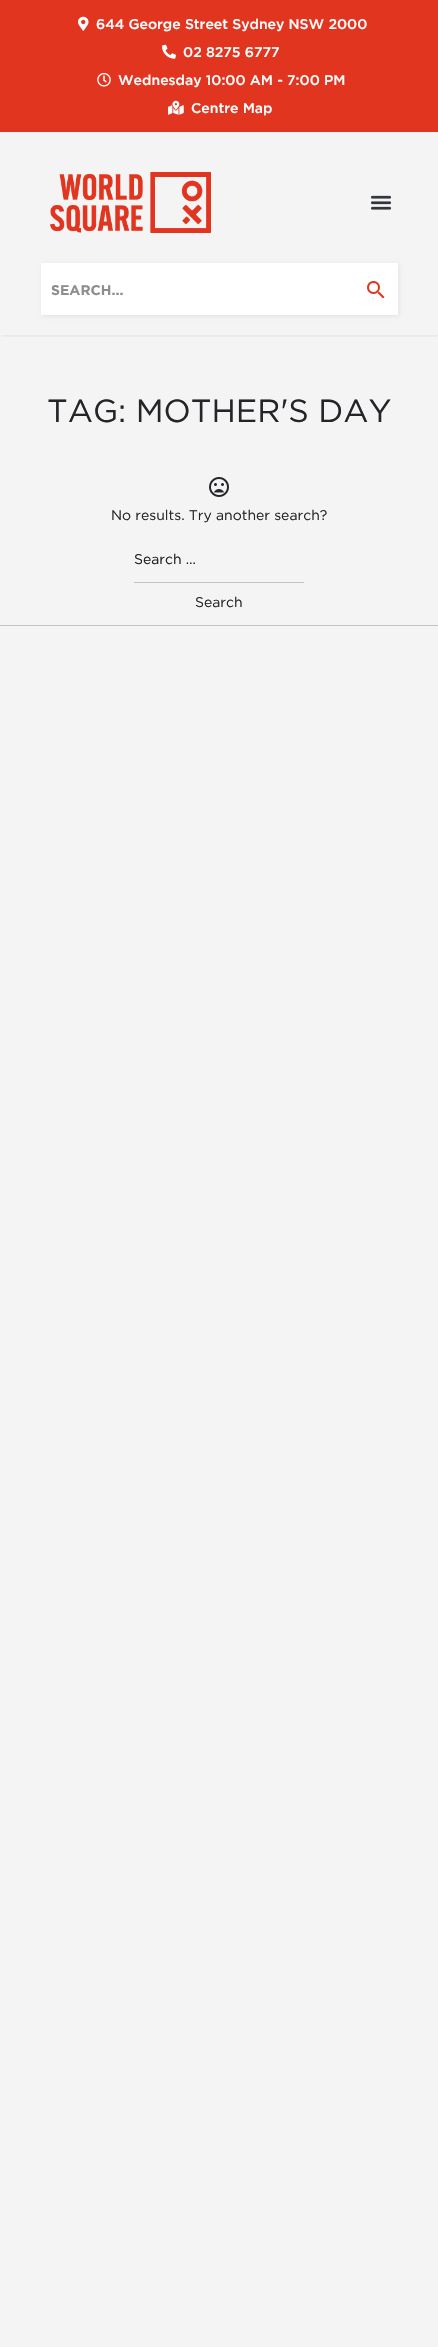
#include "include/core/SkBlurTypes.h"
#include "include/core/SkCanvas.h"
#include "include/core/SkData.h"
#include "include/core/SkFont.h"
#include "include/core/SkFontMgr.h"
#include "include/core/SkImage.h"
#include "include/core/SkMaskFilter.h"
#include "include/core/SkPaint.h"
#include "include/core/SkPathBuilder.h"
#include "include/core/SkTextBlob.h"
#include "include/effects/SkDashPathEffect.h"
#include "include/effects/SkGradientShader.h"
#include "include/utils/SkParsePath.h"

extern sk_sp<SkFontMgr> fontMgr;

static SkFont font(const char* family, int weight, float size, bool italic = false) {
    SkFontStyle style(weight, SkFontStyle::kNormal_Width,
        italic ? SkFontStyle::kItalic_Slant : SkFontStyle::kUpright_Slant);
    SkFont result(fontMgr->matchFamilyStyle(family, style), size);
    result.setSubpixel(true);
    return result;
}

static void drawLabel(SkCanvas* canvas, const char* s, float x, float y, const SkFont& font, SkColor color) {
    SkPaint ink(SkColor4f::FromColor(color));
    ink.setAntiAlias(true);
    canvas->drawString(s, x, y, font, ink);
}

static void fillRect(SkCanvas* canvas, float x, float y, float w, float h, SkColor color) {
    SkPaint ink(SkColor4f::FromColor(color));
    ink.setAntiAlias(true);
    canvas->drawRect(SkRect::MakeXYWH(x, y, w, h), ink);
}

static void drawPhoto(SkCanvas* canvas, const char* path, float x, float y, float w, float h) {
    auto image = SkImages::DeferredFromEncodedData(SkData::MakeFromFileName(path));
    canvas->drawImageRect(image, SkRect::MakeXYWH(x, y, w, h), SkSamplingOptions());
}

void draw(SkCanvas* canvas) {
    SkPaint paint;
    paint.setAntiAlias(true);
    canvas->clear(0xFFF4F4F4);
    fillRect(canvas, 0, 0, 438, 132, 0xFFE23520);
    drawPhoto(canvas, "assets/img1.png", 78, 16, 11, 15);
    SkFont font1 = font("Gotham", 500, 14);
    drawLabel(canvas, "644 George Street Sydney NSW 2000", 96, 29, font1, 0xFFFFFFFF);
    drawPhoto(canvas, "assets/img2.png", 162, 44, 14, 15);
    drawLabel(canvas, "02 8275 6777", 183, 57, font1, 0xFFFFFFFF);
    drawPhoto(canvas, "assets/img3.png", 97, 73, 14, 14);
    drawLabel(canvas, "Wednesday 10:00 AM - 7:00 PM", 118, 85, font1, 0xFFFFFFFF);
    drawPhoto(canvas, "assets/img4.png", 168, 100, 16, 15);
    drawLabel(canvas, "Centre Map", 191, 113, font1, 0xFFFFFFFF);
    canvas->save();
    canvas->clipRect(SkRect::MakeXYWH(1, 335, 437, 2));
    paint.setColor(0x12000000);
    paint.setMaskFilter(SkMaskFilter::MakeBlur(kNormal_SkBlurStyle, 2));
    canvas->drawRect(SkRect::MakeXYWH(1, 133, 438, 203), paint);
    paint.setMaskFilter(nullptr);
    canvas->restore();
    drawPhoto(canvas, "assets/img5.png", 50, 172, 161, 61);
    drawPhoto(canvas, "assets/img6.png", 370, 195, 22, 15);
    paint.setMaskFilter(SkMaskFilter::MakeBlur(kNormal_SkBlurStyle, 2));
    canvas->drawRect(SkRect::MakeXYWH(42, 264, 357, 52), paint);
    paint.setMaskFilter(nullptr);
    fillRect(canvas, 41, 263, 357, 52, 0xFFFFFFFF);
    SkFont font2 = font("Gotham", 700, 14);
    drawLabel(canvas, "SEARCH...", 51, 295, font2, 0xFF8E8E91);
    drawPhoto(canvas, "assets/img7.png", 367, 281, 18, 18);
    SkFont font3 = font("Gotham", 400, 32);
    drawLabel(canvas, "TAG: MOTHER'S DAY", 47, 422, font3, 0xFF242429);
    drawPhoto(canvas, "assets/img8.png", 209, 477, 20, 20);
    SkFont font4 = font("Gotham", 400, 14);
    drawLabel(canvas, "No results. Try another search?", 111, 520, font4, 0xFF242429);
    fillRect(canvas, 134, 582, 170, 1, 0xFFC3C3C3);
    drawLabel(canvas, "Search …", 134, 564, font4, 0xFF1D1D23);
    fillRect(canvas, 0, 625, 438, 1, 0xFFC3C3C3);
    drawLabel(canvas, "Search", 195, 607, font4, 0xFF242429);
}
